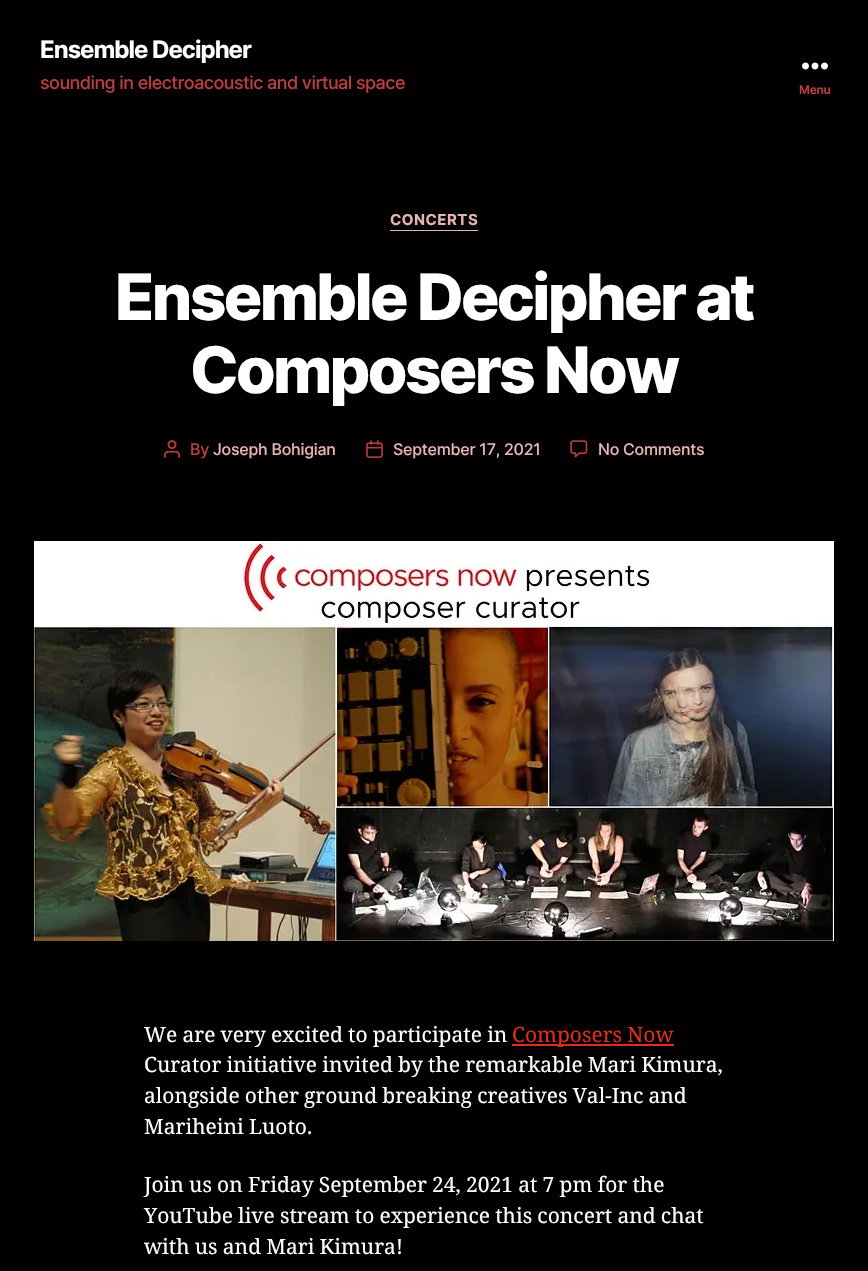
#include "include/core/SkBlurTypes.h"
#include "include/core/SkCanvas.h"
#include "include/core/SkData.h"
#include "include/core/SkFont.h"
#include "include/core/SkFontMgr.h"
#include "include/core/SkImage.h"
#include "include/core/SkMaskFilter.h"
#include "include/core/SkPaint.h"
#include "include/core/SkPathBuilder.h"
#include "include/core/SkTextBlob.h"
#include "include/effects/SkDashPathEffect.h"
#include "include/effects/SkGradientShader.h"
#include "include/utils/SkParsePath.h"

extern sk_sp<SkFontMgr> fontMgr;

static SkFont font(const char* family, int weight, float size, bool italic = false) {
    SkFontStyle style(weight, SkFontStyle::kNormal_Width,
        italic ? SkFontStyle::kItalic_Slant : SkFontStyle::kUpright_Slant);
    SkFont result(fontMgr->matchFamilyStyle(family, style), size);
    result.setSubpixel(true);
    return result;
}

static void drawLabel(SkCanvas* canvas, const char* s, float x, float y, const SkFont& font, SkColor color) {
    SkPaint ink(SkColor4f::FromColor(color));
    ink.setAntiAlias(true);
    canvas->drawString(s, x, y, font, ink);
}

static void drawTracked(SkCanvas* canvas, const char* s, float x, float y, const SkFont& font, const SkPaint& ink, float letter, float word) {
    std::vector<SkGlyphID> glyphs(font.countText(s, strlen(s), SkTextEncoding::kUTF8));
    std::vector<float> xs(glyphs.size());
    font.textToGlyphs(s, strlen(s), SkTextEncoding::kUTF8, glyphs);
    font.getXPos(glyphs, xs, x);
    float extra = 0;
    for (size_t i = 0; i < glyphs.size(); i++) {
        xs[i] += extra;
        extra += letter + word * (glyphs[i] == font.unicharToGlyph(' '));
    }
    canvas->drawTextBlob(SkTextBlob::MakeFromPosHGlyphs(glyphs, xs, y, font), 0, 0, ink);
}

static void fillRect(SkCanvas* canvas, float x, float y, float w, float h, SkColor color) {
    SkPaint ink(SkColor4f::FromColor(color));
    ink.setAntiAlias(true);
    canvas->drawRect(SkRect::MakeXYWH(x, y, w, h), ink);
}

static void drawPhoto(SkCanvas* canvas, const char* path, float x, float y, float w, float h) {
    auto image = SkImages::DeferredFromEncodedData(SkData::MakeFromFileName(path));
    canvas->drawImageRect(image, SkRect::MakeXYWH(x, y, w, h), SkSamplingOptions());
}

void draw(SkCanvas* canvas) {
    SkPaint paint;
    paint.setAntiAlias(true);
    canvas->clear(0xFF020000);
    SkFont font1 = font("Inter", 700, 24);
    paint.setColor(0xFFFFFFFF);
    drawTracked(canvas, "Ensemble Decipher", 40, 58, font1, paint, -1, 0);
    SkFont font2 = font("Inter", 500, 18);
    paint.setColor(0xFFBB3E3E);
    drawTracked(canvas, "sounding in electroacoustic and virtual space", 40, 89, font2, paint, -0.55f, 0);
    drawPhoto(canvas, "assets/img1.png", 802, 62, 26, 8);
    SkFont font3 = font("Inter", 600, 12);
    drawTracked(canvas, "Menu", 799, 94, font3, paint, -0.25f, 0);
    fillRect(canvas, 390, 230, 88, 1, 0xFFE6B4B4);
    SkFont font4 = font("Inter", 700, 15);
    paint.setColor(0xFFE6B4B4);
    drawTracked(canvas, "CONCERTS", 390, 225, font4, paint, 0.5f, 0);
    SkFont font5 = font("Inter", 800, 64);
    paint.setColor(0xFFFFFFFF);
    drawTracked(canvas, "Ensemble Decipher at", 115, 320, font5, paint, -2.7f, 0);
    drawTracked(canvas, "Composers Now", 190, 393, font5, paint, -2.7f, 0);
    drawPhoto(canvas, "assets/img2.png", 164, 440, 16, 18);
    SkFont font6 = font("Inter", 500, 16);
    paint.setColor(0xFFBB3E3E);
    drawTracked(canvas, "By", 190, 455, font6, paint, -0.25f, 0);
    paint.setColor(0xFFE6B4B4);
    drawTracked(canvas, "Joseph Bohigian", 213, 455, font6, paint, -0.25f, 0);
    drawPhoto(canvas, "assets/img3.png", 366, 440, 17, 18);
    drawTracked(canvas, "September 17, 2021", 393, 455, font6, paint, -0.25f, 0);
    drawPhoto(canvas, "assets/img4.png", 570, 440, 18, 18);
    drawTracked(canvas, "No Comments", 598, 455, font6, paint, -0.25f, 0);
    drawPhoto(canvas, "assets/img5.png", 34, 541, 800, 400);
    SkFont font7 = font("Noto Serif", 400, 21);
    paint.setColor(0xFFFFFFFF);
    drawTracked(canvas, "We are very excited to participate in", 144, 1042, font7, paint, 0, -0.25f);
    drawLabel(canvas, "C", 512, 1042, font7, 0xFFDF2C1F);
    fillRect(canvas, 512, 1044, 162, 2, 0xFFDF2C1F);
    paint.setColor(0xFFDF2C1F);
    drawTracked(canvas, "omposers Now", 525, 1042, font7, paint, 0, -0.25f);
    paint.setColor(0xFFFFFFFF);
    drawTracked(canvas, "Curator initiative invited by the remarkable Mari Kimura,", 144, 1072, font7, paint, 0, -0.25f);
    drawTracked(canvas, "alongside other ground breaking creatives Val-Inc and", 144, 1103, font7, paint, 0, -0.25f);
    drawTracked(canvas, "Mariheini Luoto.", 144, 1134, font7, paint, 0, -0.25f);
    drawTracked(canvas, "Join us on Friday September 24, 2021 at 7 pm for the", 144, 1192, font7, paint, 0, -0.25f);
    drawTracked(canvas, "YouTube live stream to experience this concert and chat", 144, 1223, font7, paint, 0, -0.25f);
    drawTracked(canvas, "with us and Mari Kimura!", 144, 1254, font7, paint, 0, -0.25f);
}
